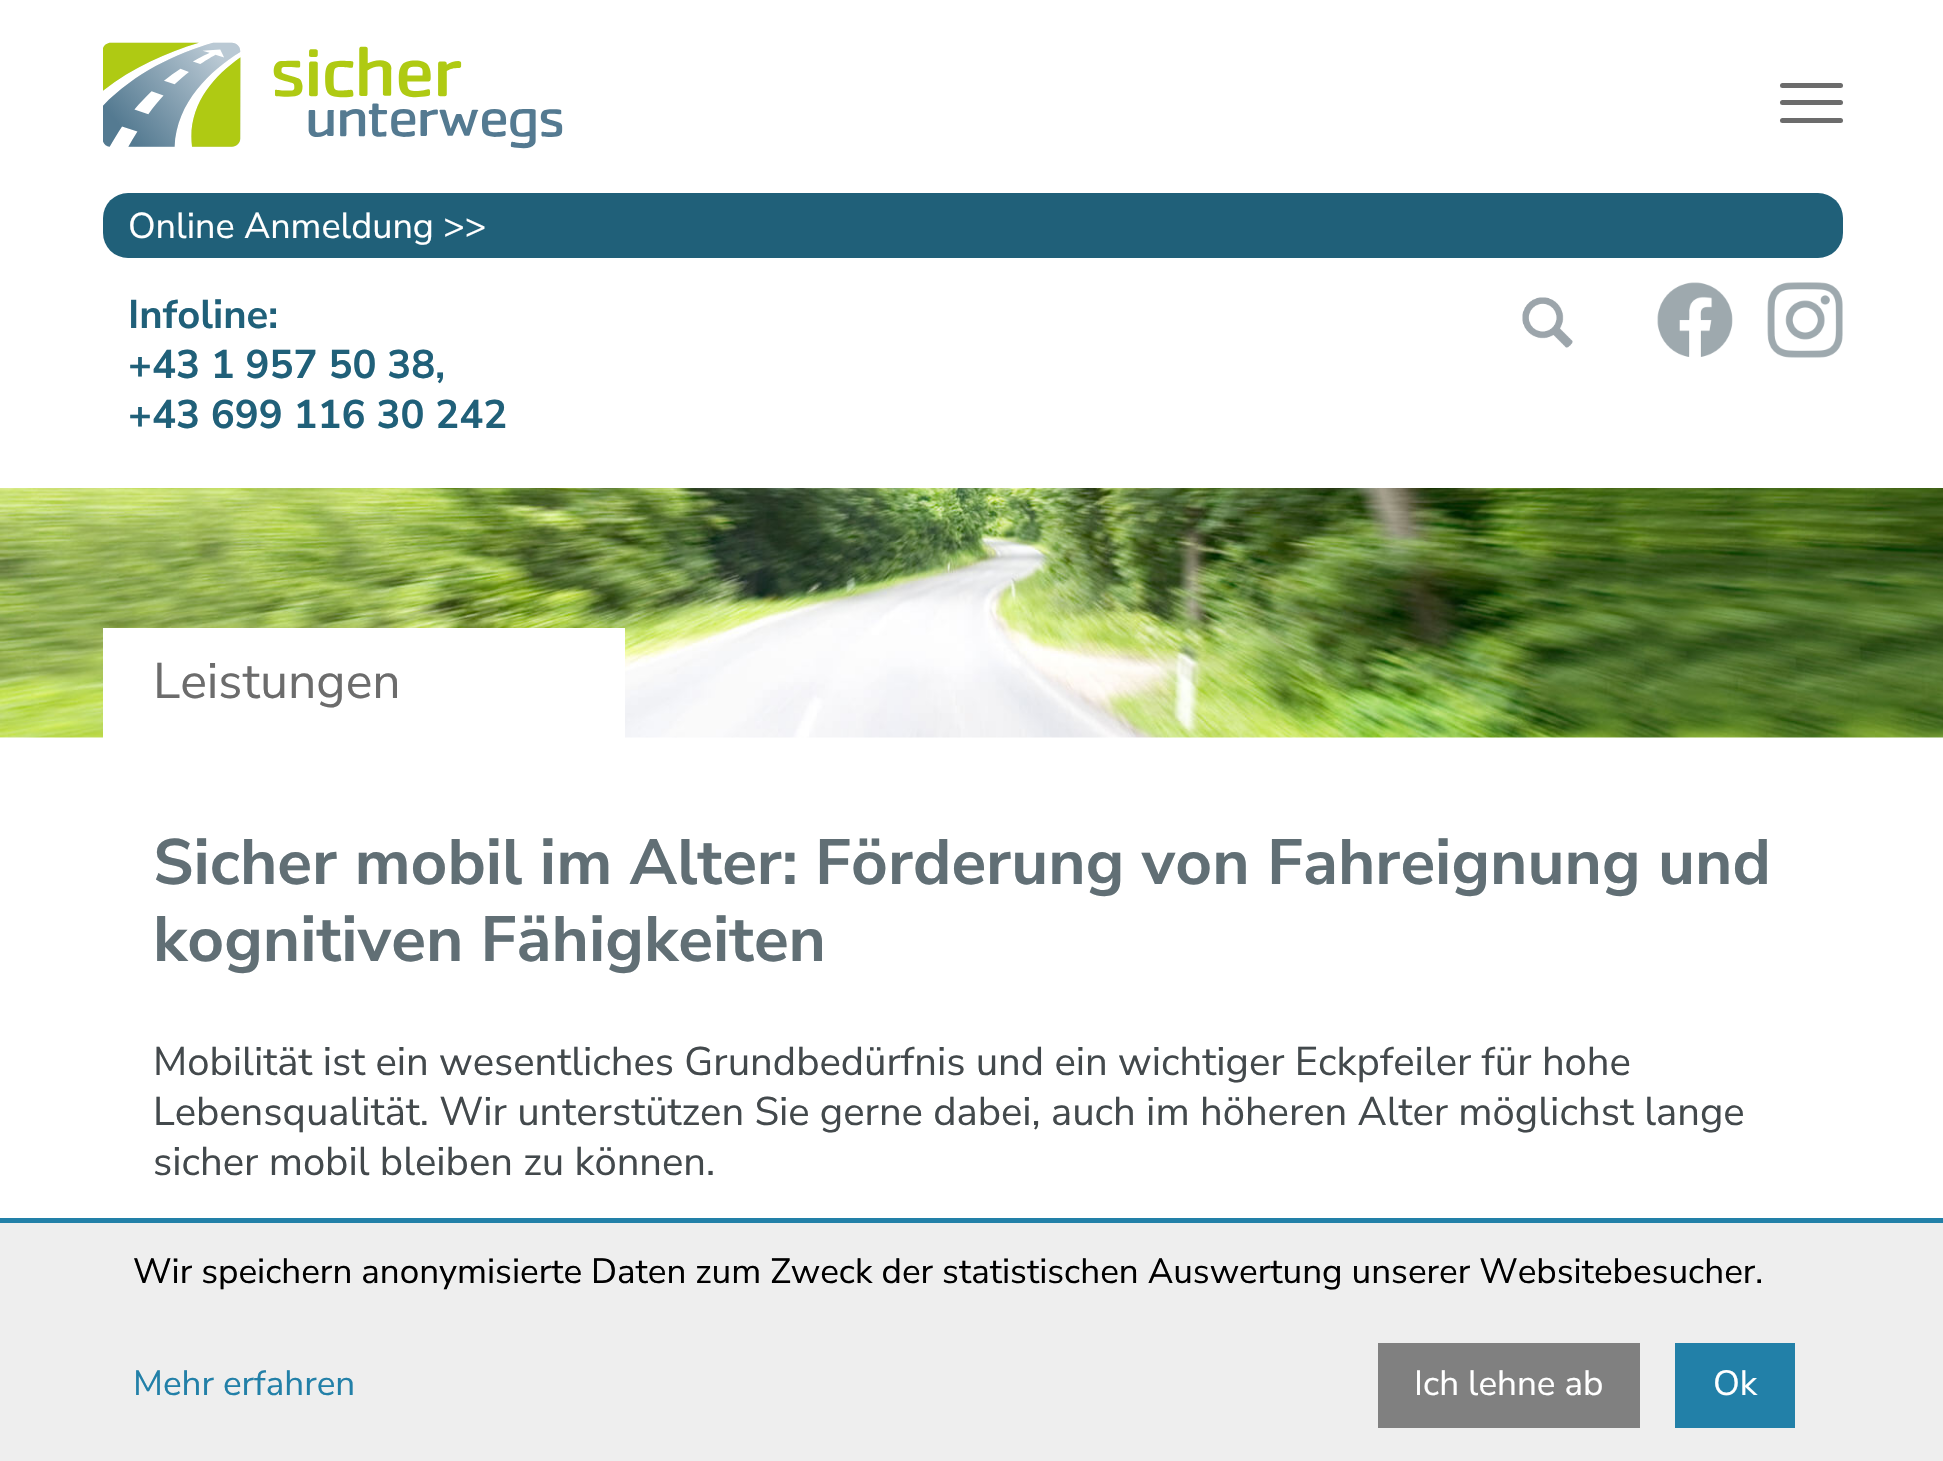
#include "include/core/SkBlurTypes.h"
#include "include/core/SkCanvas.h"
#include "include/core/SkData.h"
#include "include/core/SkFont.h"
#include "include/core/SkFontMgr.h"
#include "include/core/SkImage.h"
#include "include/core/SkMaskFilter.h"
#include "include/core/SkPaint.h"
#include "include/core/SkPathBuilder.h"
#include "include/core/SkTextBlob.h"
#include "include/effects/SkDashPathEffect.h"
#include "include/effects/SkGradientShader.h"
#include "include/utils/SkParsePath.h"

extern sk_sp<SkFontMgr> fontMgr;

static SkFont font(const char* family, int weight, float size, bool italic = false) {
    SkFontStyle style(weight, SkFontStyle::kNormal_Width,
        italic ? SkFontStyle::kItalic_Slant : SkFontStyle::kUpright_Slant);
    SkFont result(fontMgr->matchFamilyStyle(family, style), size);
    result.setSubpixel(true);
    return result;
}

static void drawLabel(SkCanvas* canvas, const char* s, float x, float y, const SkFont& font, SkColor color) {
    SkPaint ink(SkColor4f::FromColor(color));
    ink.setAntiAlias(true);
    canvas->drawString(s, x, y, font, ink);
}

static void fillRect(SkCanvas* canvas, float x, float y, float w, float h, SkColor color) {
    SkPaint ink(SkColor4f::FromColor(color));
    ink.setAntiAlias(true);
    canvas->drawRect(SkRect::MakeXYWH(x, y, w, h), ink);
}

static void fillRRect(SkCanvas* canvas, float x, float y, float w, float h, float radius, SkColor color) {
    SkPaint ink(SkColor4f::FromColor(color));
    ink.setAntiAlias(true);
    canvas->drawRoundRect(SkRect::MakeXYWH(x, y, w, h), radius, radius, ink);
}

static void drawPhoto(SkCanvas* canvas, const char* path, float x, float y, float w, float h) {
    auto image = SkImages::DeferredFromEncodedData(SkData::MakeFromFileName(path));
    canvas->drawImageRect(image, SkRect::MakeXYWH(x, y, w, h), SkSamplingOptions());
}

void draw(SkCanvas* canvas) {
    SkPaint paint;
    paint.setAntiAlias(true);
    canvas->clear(0xFFFFFFFF);
    drawPhoto(canvas, "assets/img1.png", 103, 42, 460, 107);
    fillRRect(canvas, 1780, 83, 63, 5, 2.5f, 0xFF6C6C6C);
    fillRRect(canvas, 1780, 100, 63, 5, 2.5f, 0xFF6C6C6C);
    fillRRect(canvas, 1780, 118, 63, 5, 2.5f, 0xFF6C6C6C);
    fillRRect(canvas, 103, 193, 1740, 65, 25, 0xFF206079);
    SkFont font1 = font("Nunito Sans", 400, 36);
    drawLabel(canvas, "Online Anmeldung >>", 128, 238, font1, 0xFFFFFFFF);
    SkFont font2 = font("Nunito Sans", 700, 40);
    drawLabel(canvas, "Infoline:", 128, 328, font2, 0xFF206079);
    drawLabel(canvas, "+43 1 957 50 38,", 128, 378, font2, 0xFF206079);
    drawLabel(canvas, "+43 699 116 30 242", 128, 428, font2, 0xFF206079);
    drawPhoto(canvas, "assets/img2.png", 1522, 297, 51, 51);
    drawPhoto(canvas, "assets/img3.png", 1657, 282, 76, 75);
    drawPhoto(canvas, "assets/img4.png", 1767, 282, 76, 76);
    drawPhoto(canvas, "assets/img5.png", 0, 488, 1943, 250);
    fillRect(canvas, 103, 628, 522, 110, 0xFFFFFFFF);
    SkFont font3 = font("Nunito Sans", 400, 50);
    drawLabel(canvas, "Leistungen", 153, 698, font3, 0xFF6C6C6C);
    SkFont font4 = font("Nunito Sans", 700, 64);
    drawLabel(canvas, "Sicher mobil im Alter: Förderung von Fahreignung und", 153, 884, font4, 0xFF616F75);
    drawLabel(canvas, "kognitiven Fähigkeiten", 153, 961, font4, 0xFF616F75);
    SkFont font5 = font("Nunito Sans", 400, 40);
    drawLabel(canvas, "Mobilität ist ein wesentliches Grundbedürfnis und ein wichtiger Eckpfeiler für hohe", 153, 1075, font5, 0xFF43494C);
    drawLabel(canvas, "Lebensqualität. Wir unterstützen Sie gerne dabei, auch im höheren Alter möglichst lange", 153, 1125, font5, 0xFF43494C);
    drawLabel(canvas, "sicher mobil bleiben zu können.", 153, 1175, font5, 0xFF43494C);
    fillRect(canvas, 0, 1223, 1943, 238, 0xFFEEEEEE);
    fillRect(canvas, 0, 1218, 1943, 5, 0xFF2280A8);
    SkFont font6 = font("Nunito Sans", 400, 35);
    drawLabel(canvas, "Wir speichern anonymisierte Daten zum Zweck der statistischen Auswertung unserer Websitebesucher.", 133, 1283, font6, 0xFF000000);
    drawLabel(canvas, "Mehr erfahren", 133, 1395, font6, 0xFF2280A8);
    fillRect(canvas, 1378, 1343, 262, 85, 0xFF808080);
    drawLabel(canvas, "Ich lehne ab", 1414, 1395, font6, 0xFFFFFFFF);
    fillRect(canvas, 1675, 1343, 120, 85, 0xFF2280A8);
    drawLabel(canvas, "Ok", 1713, 1395, font6, 0xFFFFFFFF);
}
